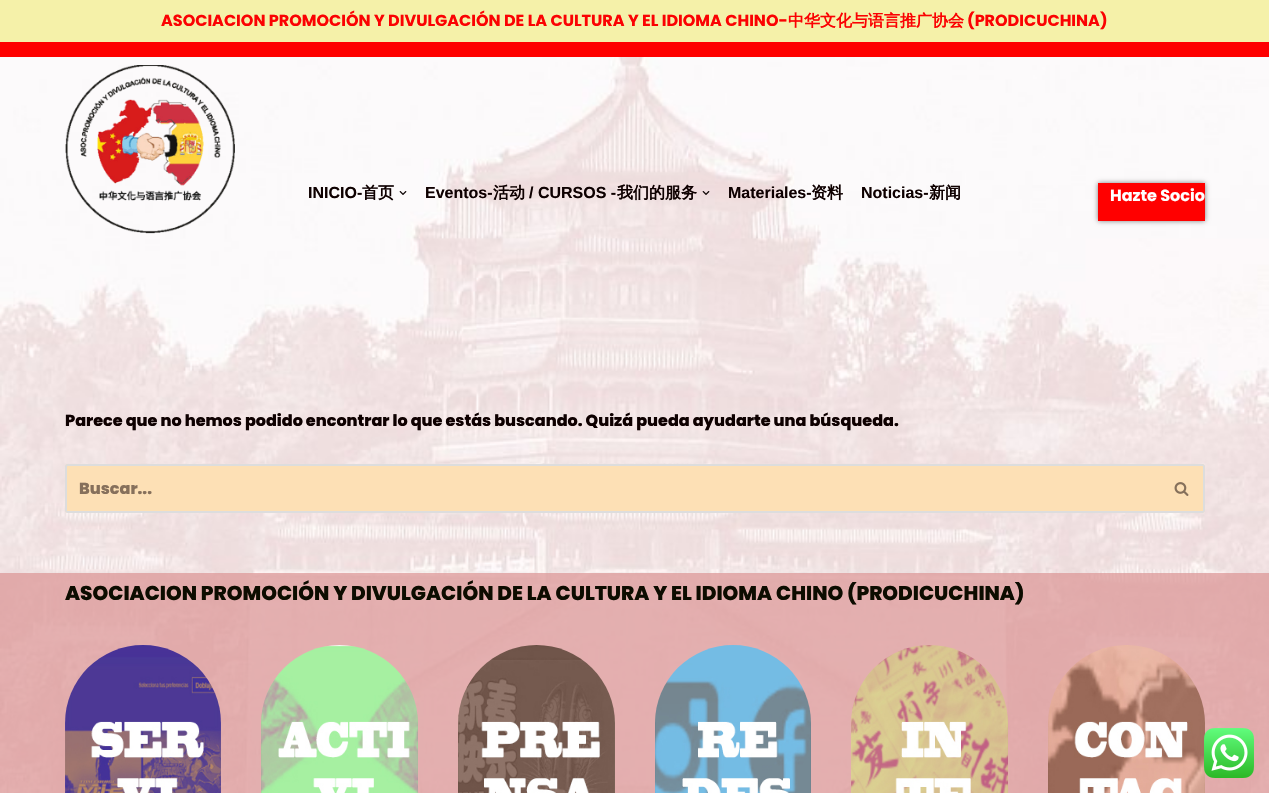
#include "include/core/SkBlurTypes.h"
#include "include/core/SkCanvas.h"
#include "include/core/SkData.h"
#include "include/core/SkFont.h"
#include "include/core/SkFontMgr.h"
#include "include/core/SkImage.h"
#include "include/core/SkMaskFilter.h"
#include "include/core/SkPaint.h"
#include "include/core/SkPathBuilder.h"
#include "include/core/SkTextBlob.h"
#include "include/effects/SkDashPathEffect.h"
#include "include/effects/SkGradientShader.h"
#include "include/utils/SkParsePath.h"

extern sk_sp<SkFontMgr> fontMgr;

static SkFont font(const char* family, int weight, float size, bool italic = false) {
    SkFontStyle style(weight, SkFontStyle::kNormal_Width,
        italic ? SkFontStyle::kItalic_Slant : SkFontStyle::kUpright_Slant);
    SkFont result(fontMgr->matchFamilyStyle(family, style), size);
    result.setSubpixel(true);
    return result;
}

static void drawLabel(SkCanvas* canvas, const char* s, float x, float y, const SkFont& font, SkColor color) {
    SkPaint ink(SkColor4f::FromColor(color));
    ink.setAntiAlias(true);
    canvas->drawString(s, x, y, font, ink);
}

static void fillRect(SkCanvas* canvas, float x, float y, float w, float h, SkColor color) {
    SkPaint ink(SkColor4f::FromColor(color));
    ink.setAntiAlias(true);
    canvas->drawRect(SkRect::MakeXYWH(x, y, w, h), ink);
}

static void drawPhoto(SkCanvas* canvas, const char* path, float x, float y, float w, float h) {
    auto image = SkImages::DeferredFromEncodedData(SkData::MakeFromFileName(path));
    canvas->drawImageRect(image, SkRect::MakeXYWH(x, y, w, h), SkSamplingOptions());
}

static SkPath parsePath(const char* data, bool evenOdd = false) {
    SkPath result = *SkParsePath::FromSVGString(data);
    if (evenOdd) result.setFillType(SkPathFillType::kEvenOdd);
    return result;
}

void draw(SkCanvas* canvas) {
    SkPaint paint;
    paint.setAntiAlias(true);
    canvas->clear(0xFFFFFFFF);
    drawPhoto(canvas, "assets/img1.png", 0, 57, 1269, 736);
    fillRect(canvas, 0, 0, 1269, 42, 0xFFF5F1A9);
    fillRect(canvas, 0, 42, 1269, 15, 0xFFFE0000);
    SkFont font1 = font("Poppins", 700, 16);
    drawLabel(canvas, "ASOCIACION PROMOCIÓN Y DIVULGACIÓN DE LA CULTURA Y EL IDIOMA CHINO-", 161, 26, font1, 0xFFFB0202);
    SkFont font2 = font("WenQuanYi Zen Hei", 700, 16);
    drawLabel(canvas, "中华文化与语言推广协会", 788, 26, font2, 0xFFFB0202);
    drawLabel(canvas, "(PRODICUCHINA)", 967, 26, font1, 0xFFFB0202);
    drawPhoto(canvas, "assets/img2.png", 65, 65, 170, 169);
    SkFont font3 = font("Liberation Sans", 700, 16);
    drawLabel(canvas, "INICIO-", 308, 198, font3, 0xFF0E0000);
    drawLabel(canvas, "首页", 362, 198, font2, 0xFF0E0000);
    drawPhoto(canvas, "assets/img3.png", 399, 191, 8, 4);
    drawLabel(canvas, "Eventos-", 425, 198, font3, 0xFF0E0000);
    drawLabel(canvas, "活动", 493, 198, font2, 0xFF0E0000);
    drawLabel(canvas, "/ CURSOS -", 529, 198, font3, 0xFF0E0000);
    drawLabel(canvas, "我们的服务", 617, 198, font2, 0xFF0E0000);
    drawPhoto(canvas, "assets/img4.png", 702, 191, 8, 4);
    drawLabel(canvas, "Materiales-", 728, 198, font3, 0xFF0E0000);
    drawLabel(canvas, "资料", 811, 198, font2, 0xFF0E0000);
    drawLabel(canvas, "Noticias-", 861, 198, font3, 0xFF0E0000);
    drawLabel(canvas, "新闻", 929, 198, font2, 0xFF0E0000);
    paint.setColor(0x80000000);
    paint.setMaskFilter(SkMaskFilter::MakeBlur(kNormal_SkBlurStyle, 2.5f));
    canvas->drawRect(SkRect::MakeXYWH(1098, 183, 107, 38), paint);
    paint.setMaskFilter(nullptr);
    fillRect(canvas, 1098, 183, 107, 38, 0xFFFF0000);
    drawLabel(canvas, "Hazte Socio", 1110, 201, font1, 0xFFFFFFFF);
    SkFont font4 = font("Poppins", 800, 16);
    drawLabel(canvas, "Parece que no hemos podido encontrar lo que estás buscando. Quizá pueda ayudarte una búsqueda.", 65, 426, font4, 0xFF0E0000);
    paint.setColor(0xFFFDE0B5);
    canvas->drawPath(parsePath("M68 464H1160V513H68C66.5 513 65 511.5 65 510V467C65 465.5 66.5 464 68 464Z"), paint);
    paint.setColor(0xFFDDDDDD);
    canvas->drawPath(parsePath("M68 464H1160V513H68C66 513 65 512 65 510V467C65 465 66 464 68 464ZM68 466H1160V511H68C67 511 67 511 67 510V467C67 466 67 466 68 466Z", true), paint);
    drawLabel(canvas, "Buscar...", 79, 494, font4, 0xFF86705B);
    paint.setColor(0xFFFDE0B5);
    canvas->drawPath(parsePath("M1160 464H1202C1203.5 464 1205 465.5 1205 467V510C1205 511.5 1203.5 513 1202 513H1160Z"), paint);
    paint.setColor(0xFFDDDDDD);
    canvas->drawPath(parsePath("M1160 464H1202C1204 464 1205 465 1205 467V510C1205 512 1204 513 1202 513H1160ZM1160 466H1202C1203 466 1203 466 1203 467V510C1203 511 1203 511 1202 511H1160Z", true), paint);
    drawPhoto(canvas, "assets/img5.png", 1174, 482, 15, 14);
    fillRect(canvas, 0, 573, 1269, 220, 0xBFDC9898);
    SkFont font5 = font("Poppins", 800, 20);
    drawLabel(canvas, "ASOCIACION PROMOCIÓN Y DIVULGACIÓN DE LA CULTURA Y EL IDIOMA CHINO (PRODICUCHINA)", 65, 600, font5, 0xFF0D0C00);
    drawPhoto(canvas, "assets/img6.png", 65, 645, 156, 148);
    drawPhoto(canvas, "assets/img7.png", 261, 645, 157, 148);
    drawPhoto(canvas, "assets/img8.png", 458, 645, 157, 148);
    drawPhoto(canvas, "assets/img9.png", 655, 645, 156, 148);
    drawPhoto(canvas, "assets/img10.png", 851, 645, 157, 148);
    drawPhoto(canvas, "assets/img11.png", 1048, 645, 157, 148);
    drawPhoto(canvas, "assets/img12.png", 1204, 728, 50, 50);
}
